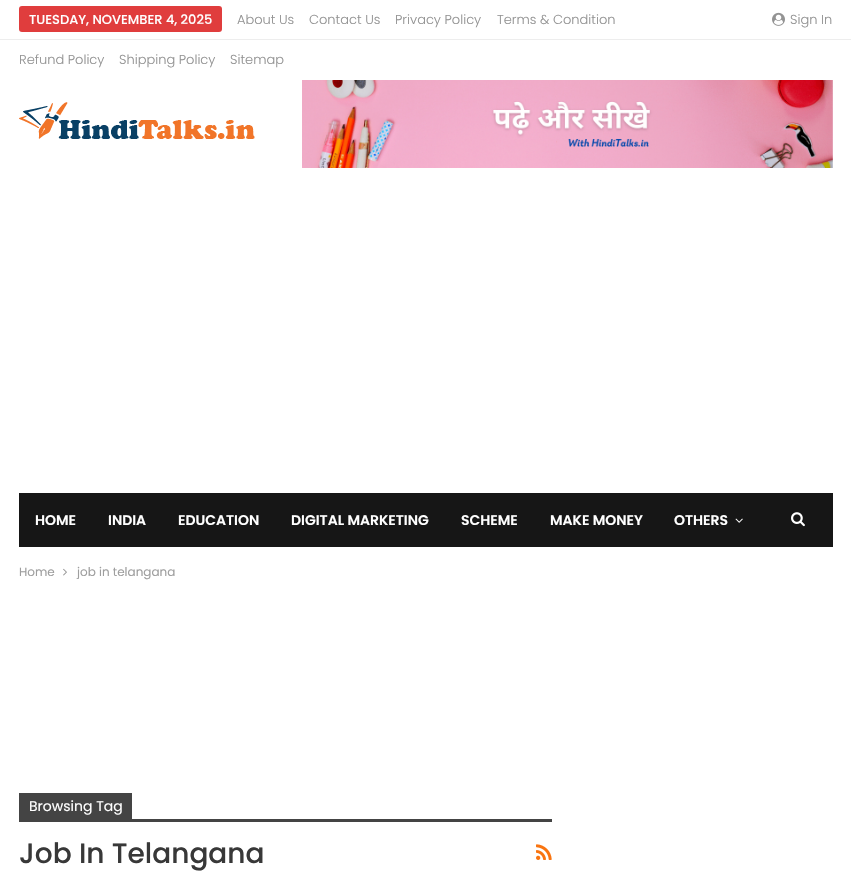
#include "include/core/SkBlurTypes.h"
#include "include/core/SkCanvas.h"
#include "include/core/SkData.h"
#include "include/core/SkFont.h"
#include "include/core/SkFontMgr.h"
#include "include/core/SkImage.h"
#include "include/core/SkMaskFilter.h"
#include "include/core/SkPaint.h"
#include "include/core/SkPathBuilder.h"
#include "include/core/SkTextBlob.h"
#include "include/effects/SkDashPathEffect.h"
#include "include/effects/SkGradientShader.h"
#include "include/utils/SkParsePath.h"

extern sk_sp<SkFontMgr> fontMgr;

static SkFont font(const char* family, int weight, float size, bool italic = false) {
    SkFontStyle style(weight, SkFontStyle::kNormal_Width,
        italic ? SkFontStyle::kItalic_Slant : SkFontStyle::kUpright_Slant);
    SkFont result(fontMgr->matchFamilyStyle(family, style), size);
    result.setSubpixel(true);
    return result;
}

static void drawLabel(SkCanvas* canvas, const char* s, float x, float y, const SkFont& font, SkColor color) {
    SkPaint ink(SkColor4f::FromColor(color));
    ink.setAntiAlias(true);
    canvas->drawString(s, x, y, font, ink);
}

static void fillRect(SkCanvas* canvas, float x, float y, float w, float h, SkColor color) {
    SkPaint ink(SkColor4f::FromColor(color));
    ink.setAntiAlias(true);
    canvas->drawRect(SkRect::MakeXYWH(x, y, w, h), ink);
}

static void fillRRect(SkCanvas* canvas, float x, float y, float w, float h, float radius, SkColor color) {
    SkPaint ink(SkColor4f::FromColor(color));
    ink.setAntiAlias(true);
    canvas->drawRoundRect(SkRect::MakeXYWH(x, y, w, h), radius, radius, ink);
}

static void drawPhoto(SkCanvas* canvas, const char* path, float x, float y, float w, float h) {
    auto image = SkImages::DeferredFromEncodedData(SkData::MakeFromFileName(path));
    canvas->drawImageRect(image, SkRect::MakeXYWH(x, y, w, h), SkSamplingOptions());
}

void draw(SkCanvas* canvas) {
    SkPaint paint;
    paint.setAntiAlias(true);
    canvas->clear(0xFFFFFFFF);
    fillRect(canvas, 0, 39, 851, 1, 0xFFEDEDED);
    fillRRect(canvas, 19, 6, 203, 26, 3, 0xFFE03D3D);
    SkFont font1 = font("Poppins", 500, 13);
    drawLabel(canvas, "TUESDAY, NOVEMBER 4, 2025", 29, 24, font1, 0xFFFFFFFF);
    SkFont font2 = font("Poppins", 300, 13);
    drawLabel(canvas, "About Us", 237, 24, font2, 0xFF939393);
    drawLabel(canvas, "Contact Us", 309, 24, font2, 0xFF939393);
    drawLabel(canvas, "Privacy Policy", 395, 24, font2, 0xFF939393);
    drawLabel(canvas, "Terms & Condition", 497, 24, font2, 0xFF939393);
    drawLabel(canvas, "Refund Policy", 19, 64, font2, 0xFF939393);
    drawLabel(canvas, "Shipping Policy", 119, 64, font2, 0xFF939393);
    drawLabel(canvas, "Sitemap", 230, 64, font2, 0xFF939393);
    drawPhoto(canvas, "assets/img1.png", 772, 12, 13, 14);
    drawLabel(canvas, "Sign In", 790, 24, font2, 0xFF939393);
    drawPhoto(canvas, "assets/img2.png", 19, 102, 236, 37);
    drawPhoto(canvas, "assets/img3.png", 302, 80, 531, 88);
    fillRect(canvas, 19, 493, 814, 54, 0xFF161616);
    SkFont font3 = font("Poppins", 600, 14);
    drawLabel(canvas, "HOME", 35, 525, font3, 0xFFFFFFFF);
    drawLabel(canvas, "INDIA", 108, 525, font3, 0xFFFFFFFF);
    drawLabel(canvas, "EDUCATION", 178, 525, font3, 0xFFFFFFFF);
    drawLabel(canvas, "DIGITAL MARKETING", 291, 525, font3, 0xFFFFFFFF);
    drawLabel(canvas, "SCHEME", 461, 525, font3, 0xFFFFFFFF);
    drawLabel(canvas, "MAKE MONEY", 550, 525, font3, 0xFFFFFFFF);
    drawLabel(canvas, "OTHERS", 674, 525, font3, 0xFFFFFFFF);
    drawPhoto(canvas, "assets/img4.png", 735, 518, 8, 5);
    drawPhoto(canvas, "assets/img5.png", 791, 512, 14, 15);
    SkFont font4 = font("Poppins", 400, 12);
    drawLabel(canvas, "Home", 19, 576, font4, 0xFF9E9E9E);
    drawPhoto(canvas, "assets/img6.png", 63, 568, 4, 8);
    drawLabel(canvas, "job in telangana", 77, 576, font4, 0xFF9E9E9E);
    fillRect(canvas, 19, 793, 113, 26, 0xFF444444);
    SkFont font5 = font("Poppins", 400, 14);
    drawLabel(canvas, "Browsing Tag", 29, 811, font5, 0xFFFFFFFF);
    fillRect(canvas, 19, 819, 533, 3, 0xFF444444);
    SkFont font6 = font("Poppins", 500, 28);
    drawLabel(canvas, "Job In Telangana", 19, 863, font6, 0xFF383838);
    drawPhoto(canvas, "assets/img7.png", 536, 844, 16, 16);
}
